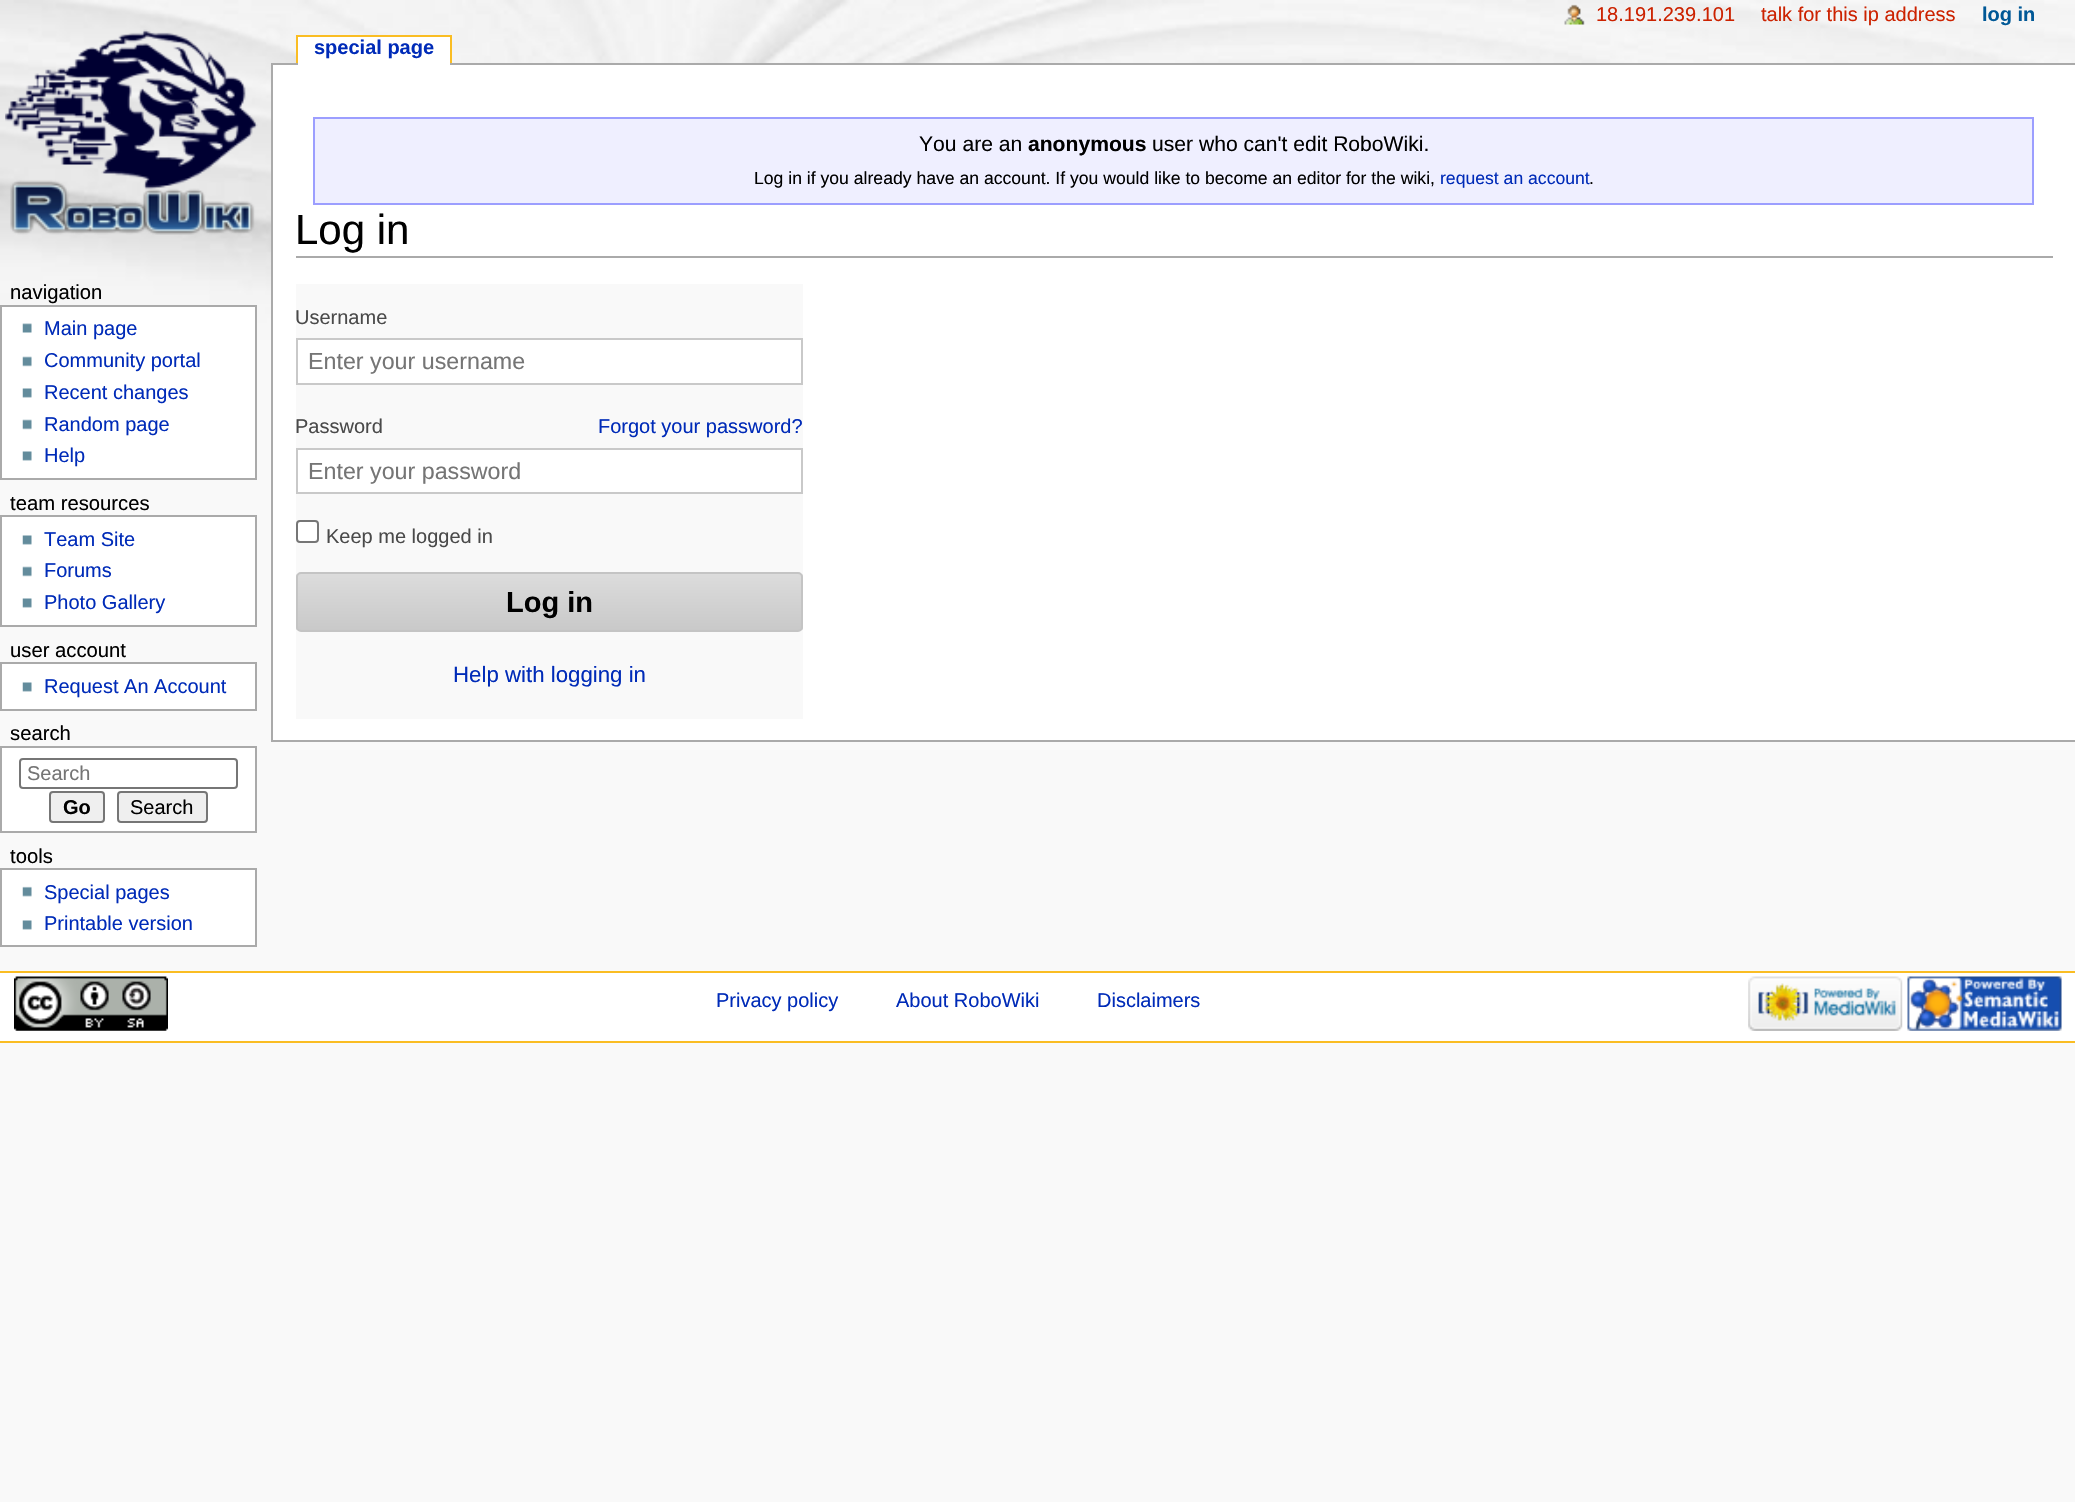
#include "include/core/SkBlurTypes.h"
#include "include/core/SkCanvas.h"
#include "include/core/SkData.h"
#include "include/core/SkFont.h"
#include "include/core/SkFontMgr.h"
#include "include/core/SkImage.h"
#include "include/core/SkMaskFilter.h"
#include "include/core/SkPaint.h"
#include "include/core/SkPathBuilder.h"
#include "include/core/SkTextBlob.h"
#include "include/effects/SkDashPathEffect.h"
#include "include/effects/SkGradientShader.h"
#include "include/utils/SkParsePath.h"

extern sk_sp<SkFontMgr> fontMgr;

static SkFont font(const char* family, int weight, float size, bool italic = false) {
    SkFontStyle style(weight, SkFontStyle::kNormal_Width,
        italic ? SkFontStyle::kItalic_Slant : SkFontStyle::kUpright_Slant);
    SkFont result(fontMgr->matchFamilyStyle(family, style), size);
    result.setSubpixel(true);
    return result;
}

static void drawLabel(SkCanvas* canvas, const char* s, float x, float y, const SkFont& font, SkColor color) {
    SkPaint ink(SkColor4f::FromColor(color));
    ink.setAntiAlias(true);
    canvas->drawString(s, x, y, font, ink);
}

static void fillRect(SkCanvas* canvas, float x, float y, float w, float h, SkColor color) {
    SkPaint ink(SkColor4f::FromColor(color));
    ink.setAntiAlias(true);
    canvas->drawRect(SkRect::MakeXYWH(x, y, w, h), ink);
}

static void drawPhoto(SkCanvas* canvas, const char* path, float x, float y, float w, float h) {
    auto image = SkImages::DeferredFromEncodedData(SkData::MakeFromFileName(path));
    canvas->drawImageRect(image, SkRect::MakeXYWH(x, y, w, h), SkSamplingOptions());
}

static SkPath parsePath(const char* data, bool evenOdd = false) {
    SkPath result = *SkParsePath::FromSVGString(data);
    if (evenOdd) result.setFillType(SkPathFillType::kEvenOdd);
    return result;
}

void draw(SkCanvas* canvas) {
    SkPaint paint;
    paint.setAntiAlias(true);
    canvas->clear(0xFFF9F9F9);
    drawPhoto(canvas, "assets/img1.png", 0, 0, 2075, 340);
    drawPhoto(canvas, "assets/img2.png", 1564, 4, 21, 21);
    SkFont font1 = font("Liberation Sans", 400, 20);
    drawLabel(canvas, "18.191.239.101", 1596, 21, font1, 0xFFCC2200);
    drawLabel(canvas, "talk for this ip address", 1761, 21, font1, 0xFFCC2200);
    SkFont font2 = font("Liberation Sans", 700, 20);
    drawLabel(canvas, "log in", 1982, 21, font2, 0xFF005896);
    drawPhoto(canvas, "assets/img3.png", 5, 29, 253, 206);
    fillRect(canvas, 271, 63, 1804, 2, 0xFFAAAAAA);
    fillRect(canvas, 298, 37, 152, 28, 0xFFFFFFFF);
    drawLabel(canvas, "special page", 314, 54, font2, 0xFF002BB8);
    fillRect(canvas, 296, 35, 156, 2, 0xFFFABD23);
    fillRect(canvas, 450, 35, 2, 28, 0xFFFABD23);
    fillRect(canvas, 296, 35, 2, 28, 0xFFFABD23);
    SkFont font3 = font("Liberation Sans", 400, 20.25f);
    drawLabel(canvas, "navigation", 10, 299, font3, 0xFF000000);
    paint.setColor(0xFFFFFFFF);
    canvas->drawRect(SkRect::MakeXYWH(1, 306, 255, 173), paint);
    paint.setStroke(true);
    paint.setStrokeWidth(2);
    paint.setColor(0xFFAAAAAA);
    canvas->drawRect(SkRect::MakeXYWH(1, 306, 255, 173), paint);
    drawPhoto(canvas, "assets/img4.png", 22, 323, 10, 10);
    drawLabel(canvas, "Main page", 44, 335, font1, 0xFF002BB8);
    drawPhoto(canvas, "assets/img5.png", 22, 356, 10, 11);
    drawLabel(canvas, "Community portal", 44, 367, font1, 0xFF002BB8);
    drawPhoto(canvas, "assets/img6.png", 22, 388, 10, 10);
    drawLabel(canvas, "Recent changes", 44, 399, font1, 0xFF002BB8);
    drawPhoto(canvas, "assets/img5.png", 22, 419, 10, 11);
    drawLabel(canvas, "Random page", 44, 431, font1, 0xFF002BB8);
    drawPhoto(canvas, "assets/img6.png", 22, 451, 10, 10);
    drawLabel(canvas, "Help", 44, 462, font1, 0xFF002BB8);
    drawLabel(canvas, "team resources", 10, 510, font3, 0xFF000000);
    paint.setStroke(false);
    paint.setColor(0xFFFFFFFF);
    canvas->drawRect(SkRect::MakeXYWH(1, 516, 255, 110), paint);
    paint.setStroke(true);
    paint.setColor(0xFFAAAAAA);
    canvas->drawRect(SkRect::MakeXYWH(1, 516, 255, 110), paint);
    drawPhoto(canvas, "assets/img6.png", 22, 535, 10, 10);
    drawLabel(canvas, "Team Site", 44, 546, font1, 0xFF002BB8);
    drawPhoto(canvas, "assets/img5.png", 22, 566, 10, 11);
    drawLabel(canvas, "Forums", 44, 577, font1, 0xFF002BB8);
    drawPhoto(canvas, "assets/img6.png", 22, 598, 10, 10);
    drawLabel(canvas, "Photo Gallery", 44, 609, font1, 0xFF002BB8);
    drawLabel(canvas, "user account", 10, 657, font3, 0xFF000000);
    paint.setStroke(false);
    paint.setColor(0xFFFFFFFF);
    canvas->drawRect(SkRect::MakeXYWH(1, 663, 255, 47), paint);
    paint.setStroke(true);
    paint.setColor(0xFFAAAAAA);
    canvas->drawRect(SkRect::MakeXYWH(1, 663, 255, 47), paint);
    drawPhoto(canvas, "assets/img6.png", 22, 682, 10, 10);
    drawLabel(canvas, "Request An Account", 44, 693, font1, 0xFF002BB8);
    drawLabel(canvas, "search", 10, 740, font3, 0xFF000000);
    paint.setStroke(false);
    paint.setColor(0xFFFFFFFF);
    canvas->drawRect(SkRect::MakeXYWH(1, 747, 255, 85), paint);
    paint.setStroke(true);
    paint.setColor(0xFFAAAAAA);
    canvas->drawRect(SkRect::MakeXYWH(1, 747, 255, 85), paint);
    paint.setColor(0xFF767676);
    canvas->drawRoundRect(SkRect::MakeXYWH(20, 759, 217, 29), 3, 3, paint);
    drawLabel(canvas, "Search", 27, 780, font1, 0xFF757575);
    paint.setStroke(false);
    paint.setColor(0xFFEFEFEF);
    canvas->drawRoundRect(SkRect::MakeXYWH(50, 792, 54, 30), 3, 3, paint);
    paint.setStroke(true);
    paint.setColor(0xFF767676);
    canvas->drawRoundRect(SkRect::MakeXYWH(50, 792, 54, 30), 3, 3, paint);
    drawLabel(canvas, "Go", 63, 814, font2, 0xFF000000);
    paint.setStroke(false);
    paint.setColor(0xFFEFEFEF);
    canvas->drawRoundRect(SkRect::MakeXYWH(118, 792, 89, 30), 3, 3, paint);
    paint.setStroke(true);
    paint.setColor(0xFF767676);
    canvas->drawRoundRect(SkRect::MakeXYWH(118, 792, 89, 30), 3, 3, paint);
    drawLabel(canvas, "Search", 130, 814, font1, 0xFF000000);
    drawLabel(canvas, "tools", 10, 863, font3, 0xFF000000);
    paint.setStroke(false);
    paint.setColor(0xFFFFFFFF);
    canvas->drawRect(SkRect::MakeXYWH(1, 869, 255, 77), paint);
    paint.setStroke(true);
    paint.setColor(0xFFAAAAAA);
    canvas->drawRect(SkRect::MakeXYWH(1, 869, 255, 77), paint);
    drawPhoto(canvas, "assets/img7.png", 22, 886, 10, 11);
    drawLabel(canvas, "Special pages", 44, 899, font1, 0xFF002BB8);
    drawPhoto(canvas, "assets/img6.png", 22, 920, 10, 10);
    drawLabel(canvas, "Printable version", 44, 930, font1, 0xFF002BB8);
    fillRect(canvas, 273, 65, 1802, 675, 0xFFFFFFFF);
    fillRect(canvas, 271, 740, 1804, 2, 0xFFAAAAAA);
    fillRect(canvas, 271, 63, 2, 679, 0xFFAAAAAA);
    paint.setStroke(false);
    paint.setColor(0xFFEFEFFF);
    canvas->drawRect(SkRect::MakeXYWH(314, 118, 1719, 86), paint);
    paint.setStroke(true);
    paint.setColor(0xFF9C9EFF);
    canvas->drawRect(SkRect::MakeXYWH(314, 118, 1719, 86), paint);
    SkFont font4 = font("Liberation Sans", 400, 21.1f);
    drawLabel(canvas, "You are an", 919, 151, font4, 0xFF000000);
    SkFont font5 = font("Liberation Sans", 700, 21.1f);
    drawLabel(canvas, "anonymous", 1028, 151, font5, 0xFF000000);
    drawLabel(canvas, "user who can't edit RoboWiki.", 1152, 151, font4, 0xFF000000);
    SkFont font6 = font("Liberation Sans", 400, 17.6f);
    drawLabel(canvas, "Log in if you already have an account. If you would like to become an editor for the wiki,", 754, 184, font6, 0xFF000000);
    drawLabel(canvas, "request an account", 1440, 184, font6, 0xFF002BB8);
    drawLabel(canvas, ".", 1589, 184, font6, 0xFF000000);
    fillRect(canvas, 296, 256, 1757, 2, 0xFFAAAAAA);
    SkFont font7 = font("Liberation Sans", 400, 42);
    drawLabel(canvas, "Log in", 295, 244, font7, 0xFF000000);
    fillRect(canvas, 296, 284, 507, 435, 0xFFF9F9F9);
    drawLabel(canvas, "Username", 295, 324, font1, 0xFF4A4A4A);
    paint.setStroke(false);
    paint.setColor(0xFFFFFFFF);
    canvas->drawRect(SkRect::MakeXYWH(297, 339, 505, 45), paint);
    paint.setStroke(true);
    paint.setColor(0xFFC9C9C9);
    canvas->drawRect(SkRect::MakeXYWH(297, 339, 505, 45), paint);
    SkFont font8 = font("Liberation Sans", 400, 23.25f);
    drawLabel(canvas, "Enter your username", 308, 369, font8, 0xFF757575);
    drawLabel(canvas, "Password", 295, 433, font1, 0xFF4A4A4A);
    drawLabel(canvas, "Forgot your password?", 598, 433, font1, 0xFF002BB8);
    paint.setStroke(false);
    paint.setColor(0xFFFFFFFF);
    canvas->drawRect(SkRect::MakeXYWH(297, 449, 505, 44), paint);
    paint.setStroke(true);
    paint.setColor(0xFFC9C9C9);
    canvas->drawRect(SkRect::MakeXYWH(297, 449, 505, 44), paint);
    drawLabel(canvas, "Enter your password", 308, 479, font8, 0xFF757575);
    paint.setStroke(false);
    paint.setColor(0xFFFFFFFF);
    canvas->drawRoundRect(SkRect::MakeXYWH(297, 521, 21, 21), 3, 3, paint);
    paint.setStroke(true);
    paint.setColor(0xFF767676);
    canvas->drawRoundRect(SkRect::MakeXYWH(297, 521, 21, 21), 3, 3, paint);
    drawLabel(canvas, "Keep me logged in", 326, 543, font1, 0xFF4A4A4A);
    canvas->save();
    canvas->clipPath(parsePath("M301 572H798C801 572 803 574 803 577V627C803 630 801 632 798 632H301C298 632 296 630 296 627V577C296 574 298 572 301 572Z"), true);
    paint.setStroke(false);
    {
        const SkColor colors[] = {0xFFDCDCDC, 0xFFC9C9C9};
        const float stops[] = {0, 1};
        const SkPoint ends[] = {{550, 574}, {550, 630}};
        paint.setShader(SkGradientShader::MakeLinear(ends, colors, stops, 2, SkTileMode::kClamp));
        paint.setAlpha(255);
    }
    canvas->drawRect(SkRect::MakeXYWH(296, 574, 507, 56), paint);
    canvas->restore();
    paint.setStroke(true);
    paint.setShader(nullptr);
    paint.setColor(0xFFC4C4C4);
    canvas->drawRoundRect(SkRect::MakeXYWH(297, 573, 505, 58), 4, 4, paint);
    SkFont font9 = font("Liberation Sans", 700, 29);
    drawLabel(canvas, "Log in", 506, 612, font9, 0xFF000000);
    SkFont font10 = font("Liberation Sans", 400, 22.25f);
    drawLabel(canvas, "Help with logging in", 453, 682, font10, 0xFF002BB8);
    fillRect(canvas, 0, 973, 2075, 68, 0xFFFFFFFF);
    fillRect(canvas, 0, 971, 2075, 2, 0xFFFABD23);
    fillRect(canvas, 0, 1041, 2075, 2, 0xFFFABD23);
    drawPhoto(canvas, "assets/img8.png", 14, 976, 154, 55);
    drawLabel(canvas, "Privacy policy", 716, 1007, font1, 0xFF002BB8);
    drawLabel(canvas, "About RoboWiki", 896, 1007, font1, 0xFF002BB8);
    drawLabel(canvas, "Disclaimers", 1097, 1007, font1, 0xFF002BB8);
    drawPhoto(canvas, "assets/img9.png", 1748, 976, 155, 55);
    drawPhoto(canvas, "assets/img10.png", 1907, 976, 155, 55);
}
